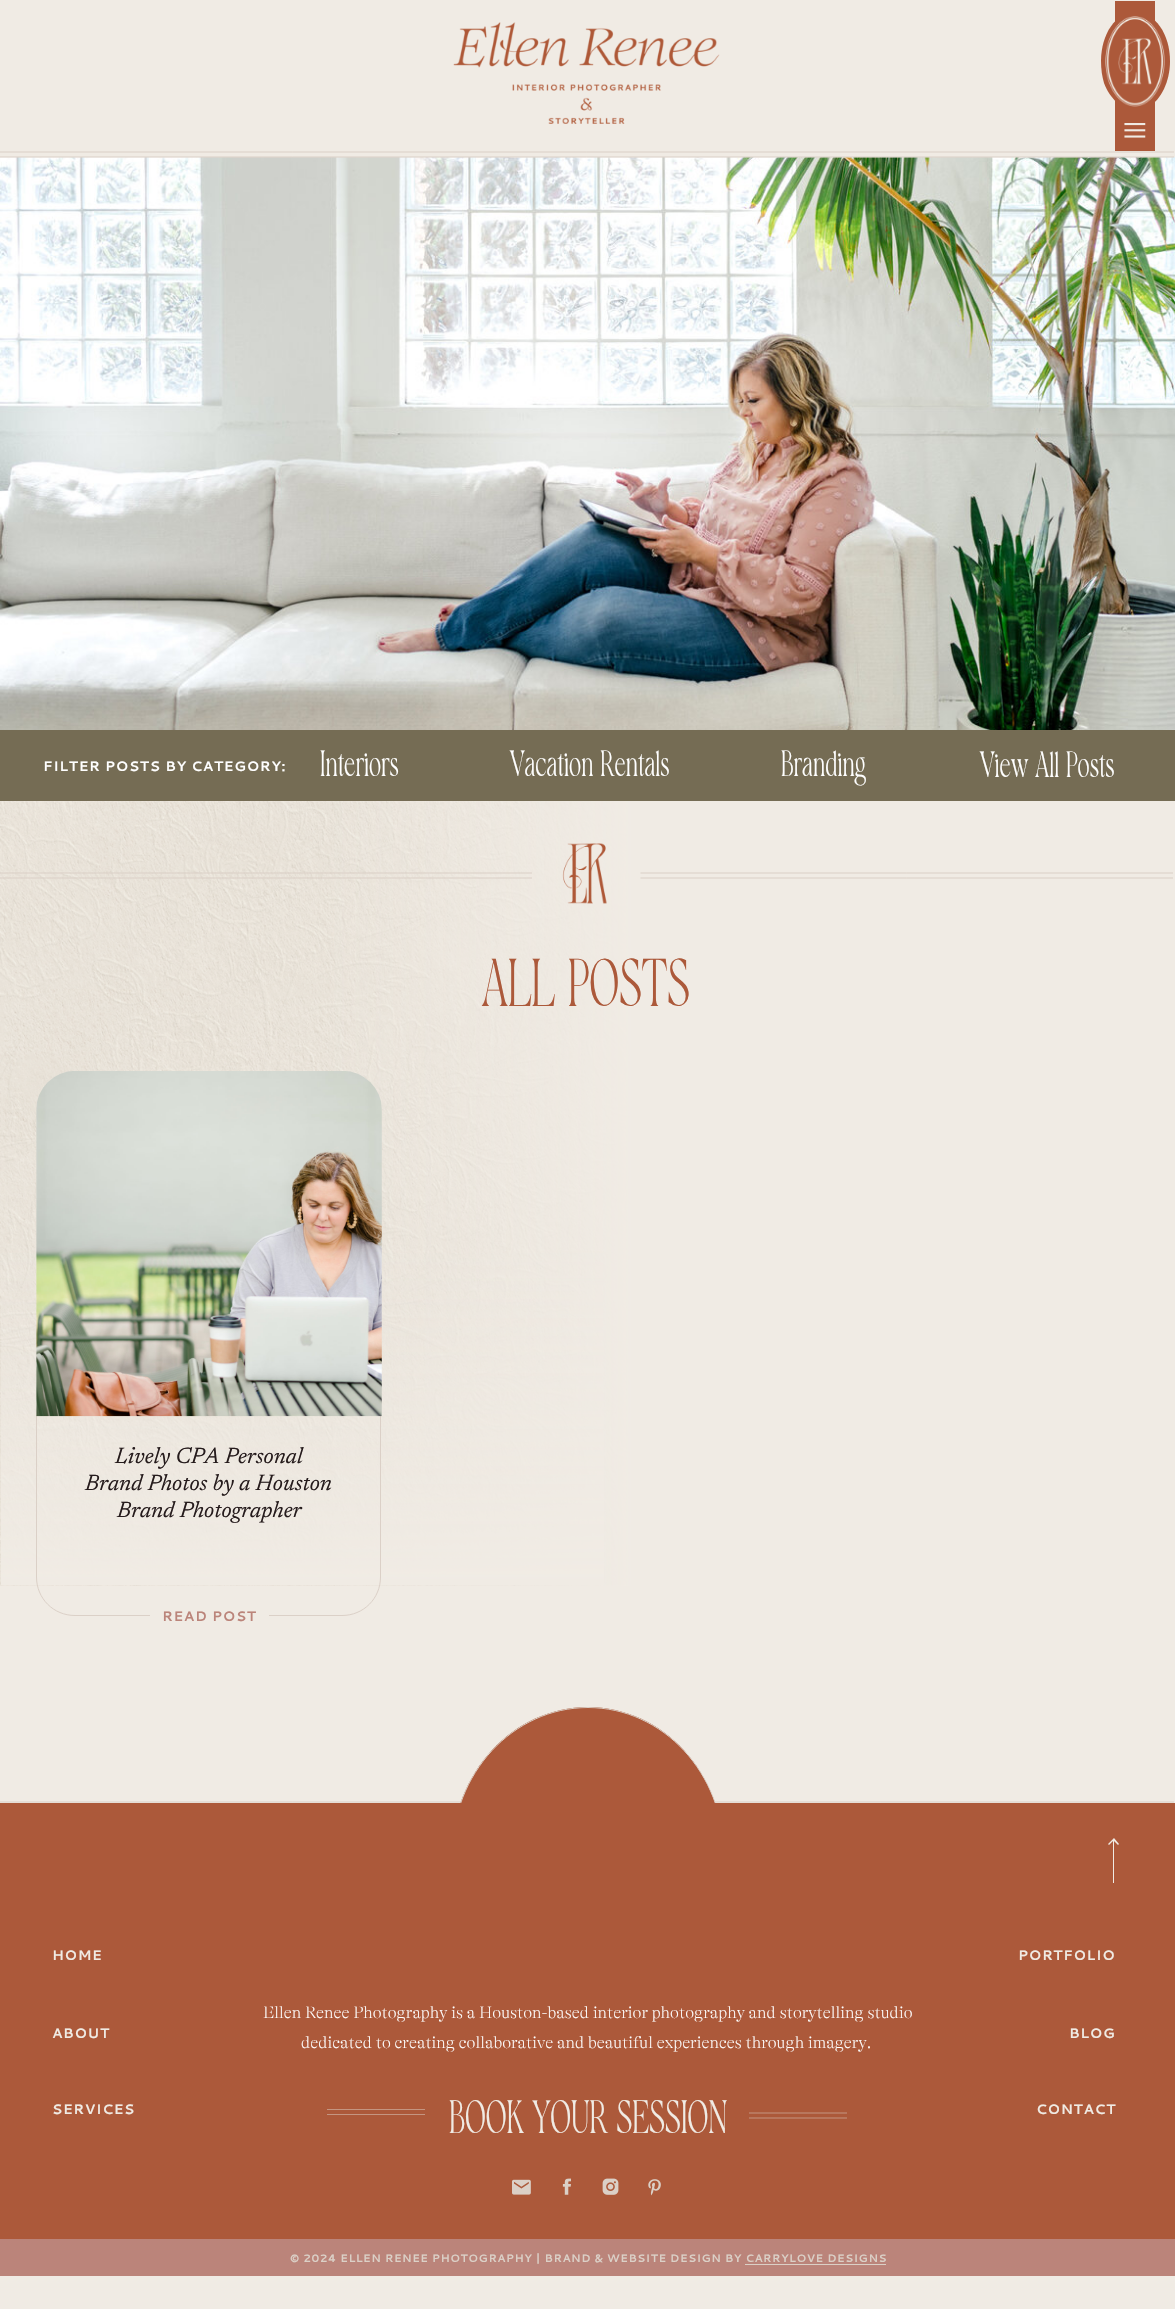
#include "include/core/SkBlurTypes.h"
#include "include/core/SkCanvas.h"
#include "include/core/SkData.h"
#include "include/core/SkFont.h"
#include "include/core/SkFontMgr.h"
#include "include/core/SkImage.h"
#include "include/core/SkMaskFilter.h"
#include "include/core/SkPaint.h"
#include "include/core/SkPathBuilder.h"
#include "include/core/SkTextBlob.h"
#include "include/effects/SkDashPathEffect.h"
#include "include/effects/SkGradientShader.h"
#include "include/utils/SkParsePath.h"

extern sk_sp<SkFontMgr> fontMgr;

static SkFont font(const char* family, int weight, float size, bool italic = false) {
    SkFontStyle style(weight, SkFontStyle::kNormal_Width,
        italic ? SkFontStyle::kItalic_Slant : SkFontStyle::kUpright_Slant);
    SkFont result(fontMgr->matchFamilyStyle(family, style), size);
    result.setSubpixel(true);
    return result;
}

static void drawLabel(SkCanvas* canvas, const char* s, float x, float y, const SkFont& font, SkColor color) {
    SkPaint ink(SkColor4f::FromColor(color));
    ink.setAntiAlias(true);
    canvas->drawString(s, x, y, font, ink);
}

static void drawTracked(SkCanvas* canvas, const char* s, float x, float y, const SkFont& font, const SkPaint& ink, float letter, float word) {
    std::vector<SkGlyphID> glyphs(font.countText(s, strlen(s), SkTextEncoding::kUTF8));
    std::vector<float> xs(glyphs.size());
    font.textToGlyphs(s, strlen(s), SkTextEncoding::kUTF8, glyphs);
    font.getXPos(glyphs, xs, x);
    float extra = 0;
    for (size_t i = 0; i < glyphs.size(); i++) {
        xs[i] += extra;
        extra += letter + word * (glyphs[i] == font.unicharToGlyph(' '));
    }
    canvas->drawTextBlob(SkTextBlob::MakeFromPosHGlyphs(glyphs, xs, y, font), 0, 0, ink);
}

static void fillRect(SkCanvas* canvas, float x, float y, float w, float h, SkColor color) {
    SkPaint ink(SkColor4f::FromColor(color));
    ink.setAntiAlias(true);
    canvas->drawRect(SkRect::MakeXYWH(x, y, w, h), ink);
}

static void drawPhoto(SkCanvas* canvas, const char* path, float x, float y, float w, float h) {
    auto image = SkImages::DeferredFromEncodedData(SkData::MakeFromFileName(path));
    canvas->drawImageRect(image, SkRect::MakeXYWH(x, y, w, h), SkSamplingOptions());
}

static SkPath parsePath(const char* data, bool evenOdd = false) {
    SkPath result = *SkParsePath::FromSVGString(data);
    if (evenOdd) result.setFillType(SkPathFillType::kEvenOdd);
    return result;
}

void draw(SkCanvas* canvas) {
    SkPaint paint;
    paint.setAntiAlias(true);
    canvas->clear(0xFFF0EBE4);
    drawPhoto(canvas, "assets/img1.png", 453, 22, 267, 102);
    fillRect(canvas, 1115, 1, 40, 150, 0xFFAC593A);
    paint.setColor(0xFFAC593A);
    canvas->drawPath(parsePath("M1135 12C1155 12 1170 34 1170 61C1170 82 1161 99 1149 107C1145 109 1140 110 1136 110C1122 110 1110 99 1104 83C1102 76 1101 69 1101 61C1101 34 1116 12 1135 12Z"), paint);
    drawPhoto(canvas, "assets/img2.png", 1105, 16, 60, 91);
    drawPhoto(canvas, "assets/img3.png", 1124, 123, 22, 15);
    paint.setStroke(true);
    paint.setStrokeWidth(1);
    paint.setColor(0xFFDBD0C7);
    canvas->drawPath(parsePath("M-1 152H1174"), paint);
    drawPhoto(canvas, "assets/img4.png", 0, 157, 1175, 573);
    canvas->drawPath(parsePath("M-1 157H1174"), paint);
    fillRect(canvas, 0, 730, 1175, 71, 0xFF756C54);
    SkFont font1 = font("Cantarell", 700, 13.75f);
    paint.setStroke(false);
    paint.setColor(0xFFFFFFFF);
    drawTracked(canvas, "FILTER POSTS BY CATEGORY:", 43, 771, font1, paint, 0.7f, 0);
    SkFont font2 = font("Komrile", 400, 34.25f);
    drawLabel(canvas, "Interiors", 320, 776, font2, 0xFFFFFFFF);
    drawLabel(canvas, "Vacation Rentals", 510, 776, font2, 0xFFFFFFFF);
    drawLabel(canvas, "Branding", 781, 776, font2, 0xFFFFFFFF);
    drawLabel(canvas, "View All Posts", 980, 777, font2, 0xFFFFFFFF);
    drawPhoto(canvas, "assets/img5.png", 0, 801, 635, 785);
    {
        const SkColor colors[] = {0x00F0EBE4, 0xFFF0EBE4};
        const float stops[] = {0, 1};
        const SkPoint ends[] = {{300, 1234}, {637, 1234}};
        paint.setShader(SkGradientShader::MakeLinear(ends, colors, stops, 2, SkTileMode::kClamp));
        paint.setAlpha(255);
    }
    canvas->drawRect(SkRect::MakeXYWH(333, 801, 302, 785), paint);
    paint.setStroke(true);
    paint.setShader(nullptr);
    paint.setColor(0xFFDBD0C7);
    canvas->drawPath(parsePath("M-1 873H532"), paint);
    drawPhoto(canvas, "assets/img6.png", 562, 843, 45, 61);
    canvas->drawPath(parsePath("M640.5 873H1173"), paint);
    canvas->drawPath(parsePath("M-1 878H532"), paint);
    canvas->drawPath(parsePath("M640.5 878H1173"), paint);
    SkFont font3 = font("Komrile", 400, 63.5f);
    drawLabel(canvas, "ALL POSTS", 482, 1006, font3, 0xFFAC593A);
    paint.setStroke(false);
    {
        const SkColor colors[] = {0x00F0EBE4, 0xFFF0EBE4};
        const float stops[] = {0, 1};
        const SkPoint ends[] = {{319, 1216}, {319, 1586}};
        paint.setShader(SkGradientShader::MakeLinear(ends, colors, stops, 2, SkTileMode::kClamp));
        paint.setAlpha(255);
    }
    canvas->drawRect(SkRect::MakeXYWH(1, 1251, 603, 334), paint);
    paint.setStroke(true);
    paint.setShader(nullptr);
    paint.setColor(0xFFDBD0C7);
    canvas->drawPath(parsePath("M36.5 1415.5H380.5V1577C380.5 1598.5 363.5 1615.5 342 1615.5H75C53.5 1615.5 36.5 1598.5 36.5 1577Z"), paint);
    drawPhoto(canvas, "assets/img7.png", 36, 1071, 346, 346);
    SkFont font4 = font("Newsreader", 400, 22.5f, true);
    drawLabel(canvas, "Lively CPA Personal", 115, 1463, font4, 0xFF251B1C);
    drawLabel(canvas, "Brand Photos by a Houston", 85, 1490, font4, 0xFF251B1C);
    drawLabel(canvas, "Brand Photographer", 117, 1517, font4, 0xFF251B1C);
    fillRect(canvas, 150, 1615, 119, 1, 0xFFF0EBE4);
    paint.setStroke(false);
    paint.setColor(0xFFBB847A);
    drawTracked(canvas, "READ POST", 162, 1621, font1, paint, 0.7f, 0);
    fillRect(canvas, 0, 1803, 1175, 436, 0xFFAC593A);
    paint.setStroke(true);
    paint.setColor(0xFFDBD0C7);
    canvas->drawPath(parsePath("M-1 1802H1174"), paint);
    paint.setStroke(false);
    paint.setColor(0xFFAC593A);
    canvas->drawPath(parsePath("M588 1707C663 1707 724 1773 724 1855C724 1870 723 1884 719 1897C702 1958 650 2003 588 2003C529 2003 478 1962 459 1905C454 1889 452 1872 452 1855C452 1773 513 1707 588 1707Z"), paint);
    canvas->save();
    canvas->clipPath(parsePath("M588 1707C663.5 1707 724.5 1773 724.5 1855C724.5 1936.5 663.5 2002.5 588 2002.5C512.5 2002.5 451.5 1936.5 451.5 1855C451.5 1773 512.5 1707 588 1707Z"), true);
    paint.setStroke(true);
    paint.setColor(0xFFDBD0C7);
    canvas->drawPath(parsePath("M588 1707.5C663 1707.5 724 1773.5 724 1855C724 1936 663 2002 588 2002C513 2002 452 1936 452 1855C452 1773.5 513 1707.5 588 1707.5Z"), paint);
    canvas->restore();
    fillRect(canvas, 451, 1803, 274, 200, 0xFFAC593A);
    paint.setStroke(false);
    paint.setColor(0xFFF0EBE4);
    canvas->drawPath(parsePath("M1108 1844L1109 1845L1113 1841V1883H1114V1841L1118 1845L1119 1844L1114 1838Z"), paint);
    drawTracked(canvas, "HOME", 52, 1960, font1, paint, 0.7f, 0);
    drawTracked(canvas, "PORTFOLIO", 1018, 1960, font1, paint, 0.7f, 0);
    drawTracked(canvas, "ABOUT", 52, 2038, font1, paint, 0.7f, 0);
    SkFont font5 = font("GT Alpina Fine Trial", 100, 16.65f);
    drawLabel(canvas, "Ellen Renee Photography is a Houston-based interior photography and storytelling studio", 263, 2018, font5, 0xFFFFFFFF);
    drawLabel(canvas, "dedicated to creating collaborative and beautiful experiences through imagery.", 301, 2048, font5, 0xFFFFFFFF);
    drawTracked(canvas, "BLOG", 1069, 2038, font1, paint, 0.7f, 0);
    drawTracked(canvas, "SERVICES", 52, 2114, font1, paint, 0.7f, 0);
    fillRect(canvas, 327, 2109, 98, 1, 0xFFC49581);
    SkFont font6 = font("Komrile", 400, 44);
    drawLabel(canvas, "BOOK YOUR SESSION", 449, 2133, font6, 0xFFF0EBE4);
    drawTracked(canvas, "CONTACT", 1036, 2114, font1, paint, 0.7f, 0);
    paint.setStroke(true);
    paint.setColor(0xFFC49581);
    canvas->drawPath(parsePath("M749 2113H847"), paint);
    fillRect(canvas, 327, 2114, 98, 1, 0xFFC49581);
    canvas->drawPath(parsePath("M749 2118H847"), paint);
    drawPhoto(canvas, "assets/img8.png", 512, 2179, 19, 16);
    drawPhoto(canvas, "assets/img9.png", 562, 2178, 9, 17);
    drawPhoto(canvas, "assets/img10.png", 602, 2178, 17, 17);
    drawPhoto(canvas, "assets/img11.png", 648, 2179, 13, 17);
    fillRect(canvas, 0, 2239, 1175, 37, 0xFFBB847A);
    SkFont font7 = font("Cantarell", 700, 10.77f);
    paint.setStroke(false);
    paint.setColor(0xFFDBD0C7);
    drawTracked(canvas, "© 2024 ELLEN RENEE PHOTOGRAPHY | BRAND & WEBSITE DESIGN BY CARRYLOVE DESIGNS", 290, 2262, font7, paint, 0.55f, 0);
    fillRect(canvas, 745, 2264, 141, 1, 0xFFDBD0C7);
}
